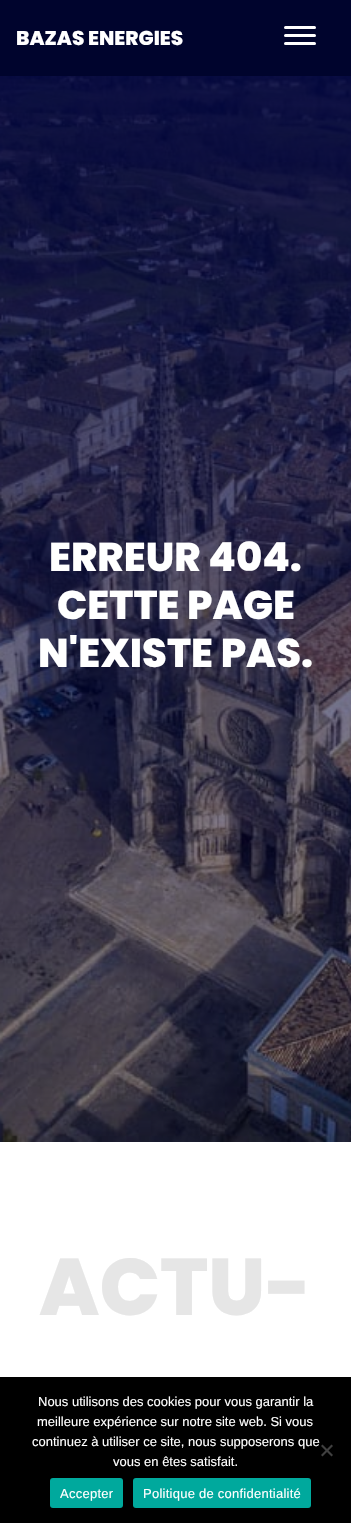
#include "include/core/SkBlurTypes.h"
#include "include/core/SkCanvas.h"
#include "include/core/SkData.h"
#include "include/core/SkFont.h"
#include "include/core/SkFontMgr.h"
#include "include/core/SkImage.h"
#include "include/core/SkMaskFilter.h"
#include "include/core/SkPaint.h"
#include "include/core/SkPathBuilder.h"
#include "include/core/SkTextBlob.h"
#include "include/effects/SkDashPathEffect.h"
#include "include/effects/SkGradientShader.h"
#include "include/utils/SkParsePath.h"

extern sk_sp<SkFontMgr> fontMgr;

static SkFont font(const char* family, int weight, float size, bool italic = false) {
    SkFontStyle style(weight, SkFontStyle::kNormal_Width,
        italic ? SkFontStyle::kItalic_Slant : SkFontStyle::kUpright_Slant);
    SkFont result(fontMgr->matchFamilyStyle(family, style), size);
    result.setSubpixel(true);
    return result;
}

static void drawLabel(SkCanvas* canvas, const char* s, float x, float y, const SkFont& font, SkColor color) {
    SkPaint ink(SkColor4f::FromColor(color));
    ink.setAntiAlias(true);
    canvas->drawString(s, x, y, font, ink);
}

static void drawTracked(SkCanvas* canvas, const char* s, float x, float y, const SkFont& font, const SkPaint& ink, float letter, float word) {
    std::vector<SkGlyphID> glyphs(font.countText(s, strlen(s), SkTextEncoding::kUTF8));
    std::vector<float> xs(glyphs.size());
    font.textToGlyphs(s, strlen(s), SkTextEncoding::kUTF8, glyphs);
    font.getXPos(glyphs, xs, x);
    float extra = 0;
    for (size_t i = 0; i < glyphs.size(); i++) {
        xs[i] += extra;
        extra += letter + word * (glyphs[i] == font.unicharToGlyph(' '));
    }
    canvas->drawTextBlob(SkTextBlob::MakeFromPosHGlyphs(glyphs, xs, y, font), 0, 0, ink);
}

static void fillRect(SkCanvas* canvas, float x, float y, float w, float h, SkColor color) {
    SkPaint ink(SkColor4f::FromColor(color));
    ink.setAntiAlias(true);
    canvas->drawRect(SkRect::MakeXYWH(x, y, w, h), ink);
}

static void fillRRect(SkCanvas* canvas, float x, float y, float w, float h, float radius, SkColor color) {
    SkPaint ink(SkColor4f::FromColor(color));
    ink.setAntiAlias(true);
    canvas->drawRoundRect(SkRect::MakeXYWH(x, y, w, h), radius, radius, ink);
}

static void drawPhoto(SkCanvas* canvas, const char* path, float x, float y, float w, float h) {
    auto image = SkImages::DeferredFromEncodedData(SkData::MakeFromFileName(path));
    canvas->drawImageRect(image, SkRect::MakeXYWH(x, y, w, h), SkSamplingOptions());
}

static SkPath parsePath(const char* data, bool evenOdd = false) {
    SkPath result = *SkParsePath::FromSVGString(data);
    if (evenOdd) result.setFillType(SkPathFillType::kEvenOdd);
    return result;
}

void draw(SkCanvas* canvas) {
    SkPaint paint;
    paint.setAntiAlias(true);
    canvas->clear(0xFFFFFFFF);
    fillRect(canvas, 0, 0, 351, 76, 0xFF00042D);
    SkFont font1 = font("Poppins", 800, 20);
    drawLabel(canvas, "BAZAS ENERGIES", 16, 45, font1, 0xFFFFFFFF);
    fillRRect(canvas, 284, 42, 32, 3, 1.5f, 0xFFFFFFFF);
    fillRRect(canvas, 284, 26, 32, 3, 1.5f, 0xFFFFFFFF);
    fillRRect(canvas, 284, 34, 32, 3, 1.5f, 0xFFFFFFFF);
    drawPhoto(canvas, "assets/img1.png", 0, 76, 351, 1066);
    SkFont font2 = font("Poppins", 800, 40);
    drawLabel(canvas, "ERREUR 404.", 49, 571, font2, 0xFFFFFFFF);
    drawLabel(canvas, "CETTE PAGE", 57, 619, font2, 0xFFFFFFFF);
    drawLabel(canvas, "N'EXISTE PAS.", 38, 667, font2, 0xFFFFFFFF);
    SkFont font3 = font("Poppins", 800, 80);
    drawLabel(canvas, "ACTU-", 39, 1315, font3, 0xFFE6E6E6);
    fillRect(canvas, 0, 1377, 351, 146, 0xFF000000);
    SkFont font4 = font("Liberation Sans", 400, 13);
    drawLabel(canvas, "Nous utilisons des cookies pour vous garantir la", 38, 1406, font4, 0xFFFFFFFF);
    drawLabel(canvas, "meilleure expérience sur notre site web. Si vous", 37, 1426, font4, 0xFFFFFFFF);
    drawLabel(canvas, "continuez à utiliser ce site, nous supposerons que", 32, 1446, font4, 0xFFFFFFFF);
    drawLabel(canvas, "vous en êtes satisfait.", 113, 1466, font4, 0xFFFFFFFF);
    paint.setColor(0xFF404040);
    canvas->drawPath(parsePath("M331.5 1444.5L333 1446L322.5 1456.5L321 1455Z"), paint);
    canvas->drawPath(parsePath("M321 1446L322.5 1444.5L333 1455L331.5 1456.5Z"), paint);
    fillRRect(canvas, 50, 1478, 73, 30, 3, 0xFF00A99D);
    paint.setColor(0xFFFFFFFF);
    drawTracked(canvas, "Accepter", 60, 1498, font4, paint, 0.25f, 0);
    fillRRect(canvas, 133, 1478, 178, 30, 3, 0xFF00A99D);
    drawTracked(canvas, "Politique de confidentialité", 143, 1498, font4, paint, 0.25f, 0);
}
